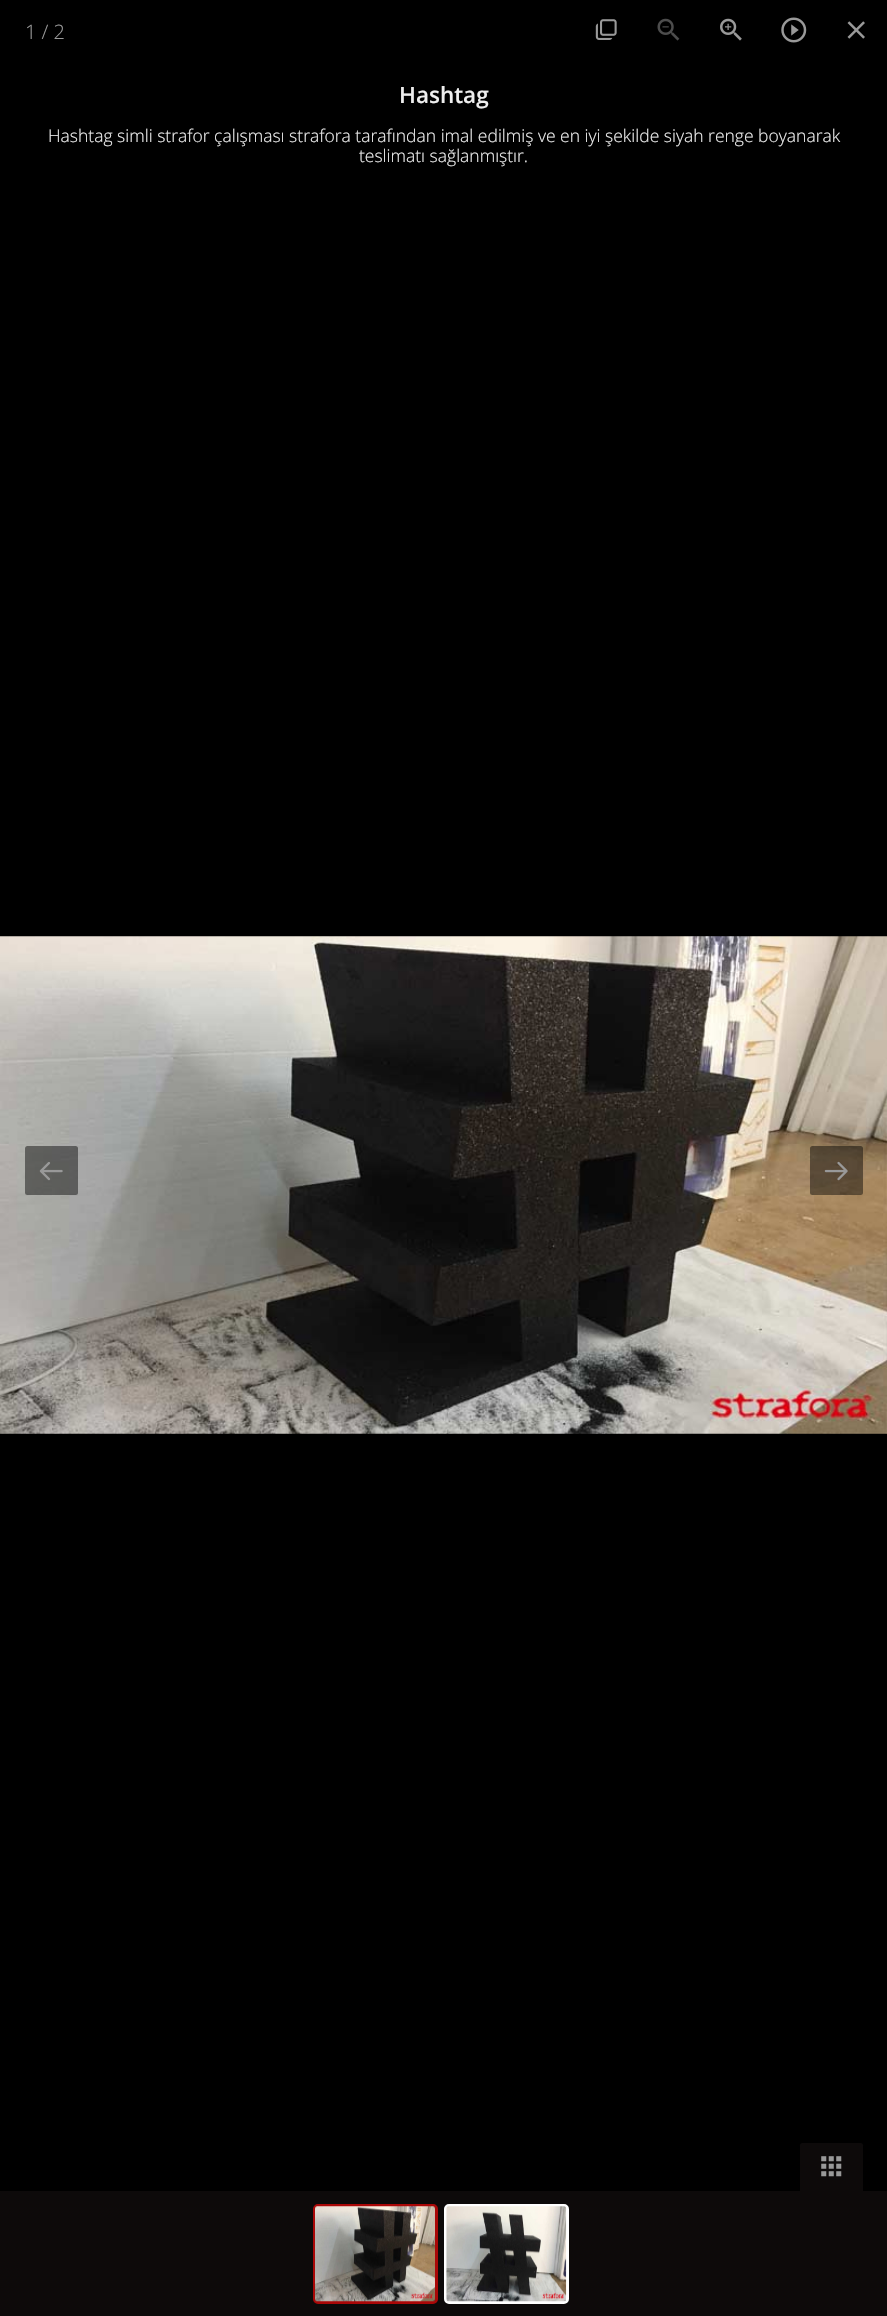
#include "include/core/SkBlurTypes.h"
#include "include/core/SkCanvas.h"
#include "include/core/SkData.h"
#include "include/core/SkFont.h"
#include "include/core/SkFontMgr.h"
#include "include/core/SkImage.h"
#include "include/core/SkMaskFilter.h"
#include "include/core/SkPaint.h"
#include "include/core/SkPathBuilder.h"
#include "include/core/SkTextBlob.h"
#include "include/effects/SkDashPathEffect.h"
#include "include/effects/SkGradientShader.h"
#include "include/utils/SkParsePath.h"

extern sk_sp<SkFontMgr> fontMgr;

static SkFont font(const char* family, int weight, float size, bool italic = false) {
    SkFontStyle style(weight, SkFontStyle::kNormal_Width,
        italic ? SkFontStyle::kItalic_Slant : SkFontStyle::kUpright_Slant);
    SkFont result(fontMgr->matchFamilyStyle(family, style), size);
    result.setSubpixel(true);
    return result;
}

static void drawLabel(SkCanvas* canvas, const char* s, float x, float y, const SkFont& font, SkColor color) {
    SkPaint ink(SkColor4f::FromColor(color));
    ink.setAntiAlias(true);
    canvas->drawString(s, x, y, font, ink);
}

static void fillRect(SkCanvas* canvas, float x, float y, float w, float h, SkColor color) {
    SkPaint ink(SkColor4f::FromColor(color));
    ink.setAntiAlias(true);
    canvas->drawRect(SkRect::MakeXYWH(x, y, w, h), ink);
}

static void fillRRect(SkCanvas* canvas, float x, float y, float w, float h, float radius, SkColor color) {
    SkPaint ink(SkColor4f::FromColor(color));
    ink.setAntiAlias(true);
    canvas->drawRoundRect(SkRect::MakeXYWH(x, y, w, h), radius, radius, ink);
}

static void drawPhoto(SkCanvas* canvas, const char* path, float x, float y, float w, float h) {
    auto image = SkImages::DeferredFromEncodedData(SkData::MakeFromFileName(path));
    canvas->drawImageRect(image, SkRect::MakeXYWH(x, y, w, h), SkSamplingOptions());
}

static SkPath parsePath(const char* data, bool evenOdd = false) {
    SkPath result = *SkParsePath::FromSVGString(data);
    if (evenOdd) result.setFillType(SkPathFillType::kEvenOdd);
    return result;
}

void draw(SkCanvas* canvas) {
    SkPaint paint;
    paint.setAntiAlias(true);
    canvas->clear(0xFF000000);
    SkFont font1 = font("Open Sans", 300, 20);
    drawLabel(canvas, "1 / 2", 25, 39, font1, 0xFF999999);
    drawPhoto(canvas, "assets/img1.png", 595, 19, 22, 21);
    drawPhoto(canvas, "assets/img2.png", 657, 18, 23, 23);
    drawPhoto(canvas, "assets/img3.png", 720, 18, 22, 23);
    drawPhoto(canvas, "assets/img4.png", 781, 17, 26, 26);
    drawPhoto(canvas, "assets/img5.png", 847, 21, 18, 18);
    drawPhoto(canvas, "assets/img6.png", 0, 936, 887, 498);
    fillRRect(canvas, 25, 1146, 53, 49, 2.5f, 0x73000000);
    drawPhoto(canvas, "assets/img7.png", 39, 1162, 24, 19);
    fillRRect(canvas, 810, 1146, 53, 49, 2.5f, 0x73000000);
    drawPhoto(canvas, "assets/img8.png", 824, 1161, 24, 20);
    fillRect(canvas, 0, 2191, 887, 125, 0xFF0D0A0A);
    paint.setColor(0xFF0D0A0A);
    canvas->drawPath(parsePath("M802.5 2143H860.5C862 2143 863 2144 863 2145.5V2191H800V2145.5C800 2144 801 2143 802.5 2143Z"), paint);
    drawPhoto(canvas, "assets/img9.png", 821, 2156, 21, 21);
    paint.setStroke(true);
    paint.setStrokeWidth(3);
    paint.setColor(0xFFA90707);
    canvas->drawRoundRect(SkRect::MakeXYWH(314.5f, 2205.5f, 122, 97), 3.5f, 3.5f, paint);
    drawPhoto(canvas, "assets/img10.png", 315, 2206, 120, 96);
    paint.setColor(0xFFFFFFFF);
    canvas->drawRoundRect(SkRect::MakeXYWH(445.5f, 2205.5f, 122, 97), 3.5f, 3.5f, paint);
    drawPhoto(canvas, "assets/img11.png", 446, 2206, 121, 96);
    SkFont font2 = font("Open Sans", 600, 22.5f);
    drawLabel(canvas, "Hashtag", 399, 103, font2, 0xFFEEEEEE);
    SkFont font3 = font("Open Sans", 300, 17.5f);
    drawLabel(canvas, "Hashtag simli strafor çalışması strafora tarafından imal edilmiş ve en iyi şekilde siyah renge boyanarak", 48, 142, font3, 0xFFEEEEEE);
    drawLabel(canvas, "teslimatı sağlanmıştır.", 359, 162, font3, 0xFFEEEEEE);
}
